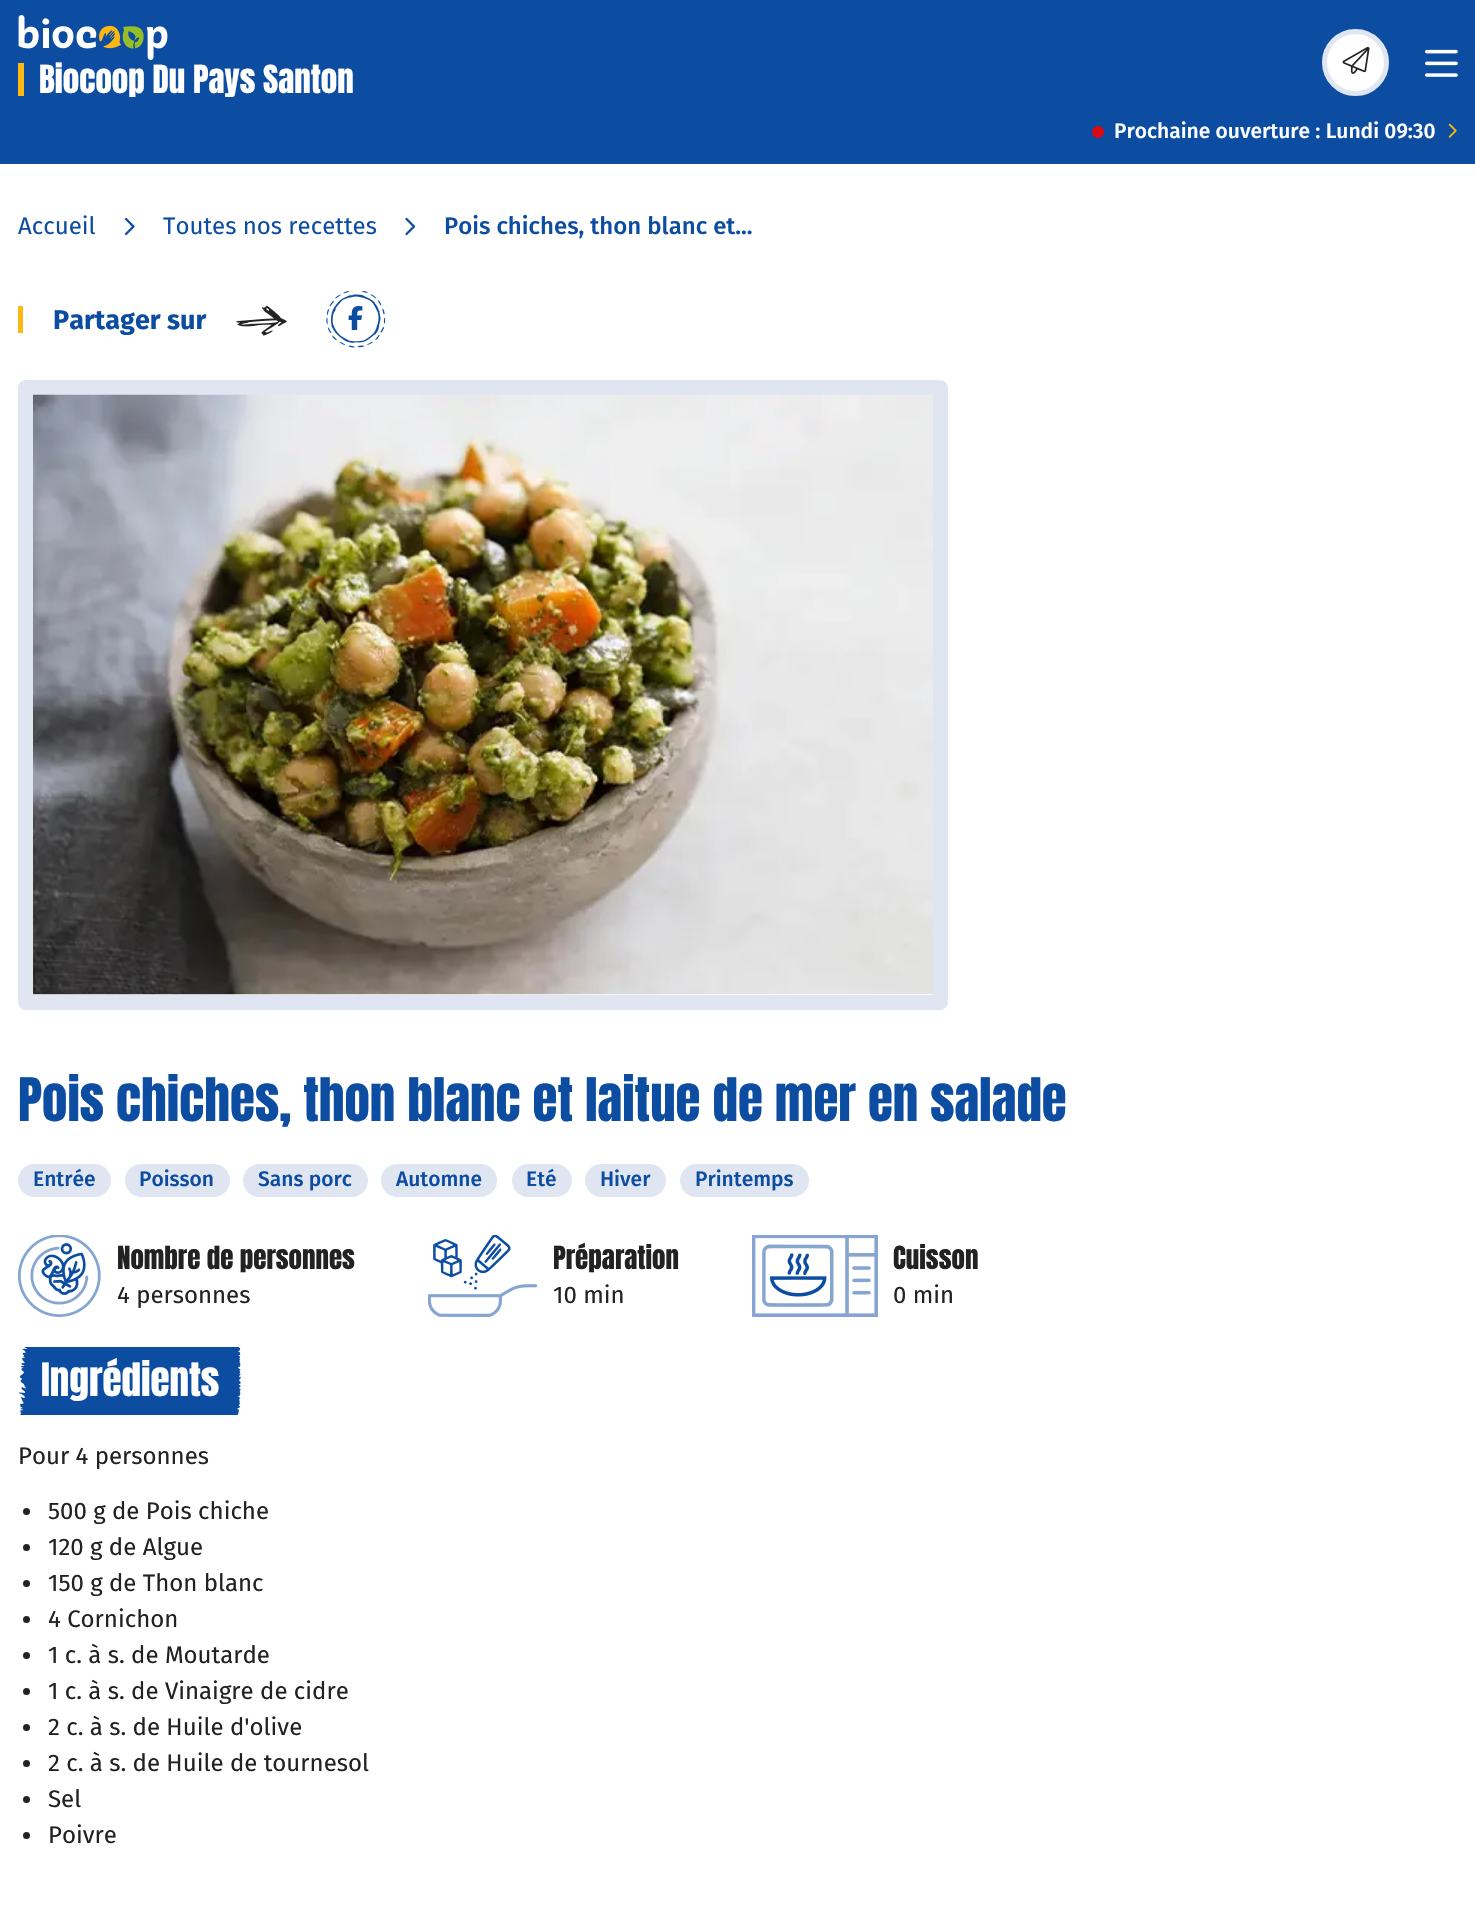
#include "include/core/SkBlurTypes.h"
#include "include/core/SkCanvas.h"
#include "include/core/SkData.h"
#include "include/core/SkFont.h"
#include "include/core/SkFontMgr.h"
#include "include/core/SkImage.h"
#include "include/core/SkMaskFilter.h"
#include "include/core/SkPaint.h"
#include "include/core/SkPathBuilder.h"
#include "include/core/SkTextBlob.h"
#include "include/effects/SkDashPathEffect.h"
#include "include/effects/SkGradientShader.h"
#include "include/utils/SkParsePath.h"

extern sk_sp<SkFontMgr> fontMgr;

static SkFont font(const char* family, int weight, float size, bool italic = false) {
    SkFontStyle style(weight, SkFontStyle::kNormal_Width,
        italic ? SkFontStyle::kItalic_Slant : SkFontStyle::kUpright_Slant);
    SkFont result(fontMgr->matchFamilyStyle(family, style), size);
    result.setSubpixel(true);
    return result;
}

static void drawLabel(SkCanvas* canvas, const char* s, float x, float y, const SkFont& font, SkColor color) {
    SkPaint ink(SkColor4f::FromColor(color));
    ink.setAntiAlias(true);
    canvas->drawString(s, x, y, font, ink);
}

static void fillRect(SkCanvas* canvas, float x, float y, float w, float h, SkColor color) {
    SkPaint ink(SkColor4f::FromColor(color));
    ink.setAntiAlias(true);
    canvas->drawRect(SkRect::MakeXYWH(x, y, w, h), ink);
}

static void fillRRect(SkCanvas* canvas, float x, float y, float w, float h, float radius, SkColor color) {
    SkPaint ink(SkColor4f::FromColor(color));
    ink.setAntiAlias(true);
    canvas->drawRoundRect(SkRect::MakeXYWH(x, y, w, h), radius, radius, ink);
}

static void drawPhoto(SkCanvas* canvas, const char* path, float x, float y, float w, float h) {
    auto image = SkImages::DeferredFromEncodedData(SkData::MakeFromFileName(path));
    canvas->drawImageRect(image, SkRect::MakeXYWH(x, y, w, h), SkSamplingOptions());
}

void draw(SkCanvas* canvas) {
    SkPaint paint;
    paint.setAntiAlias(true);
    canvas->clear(0xFFFFFFFF);
    fillRect(canvas, 0, 0, 1475, 164, 0xFF0C4DA2);
    drawPhoto(canvas, "assets/img1.png", 18, 15, 150, 45);
    fillRect(canvas, 18, 63, 6, 33, 0xFFFDB813);
    SkFont font1 = font("Anton", 400, 33);
    drawLabel(canvas, "Biocoop Du Pays Santon", 39, 93, font1, 0xFFFFFFFF);
    paint.setColor(0xFFFFFFFF);
    canvas->drawCircle(1355.5f, 62.5f, 31, paint);
    paint.setStroke(true);
    paint.setStrokeWidth(5);
    paint.setColor(0xFFDFE5F1);
    canvas->drawCircle(1355.5f, 62.5f, 31, paint);
    drawPhoto(canvas, "assets/img2.png", 1342, 46, 28, 28);
    drawPhoto(canvas, "assets/img3.png", 1425, 49, 33, 28);
    paint.setStroke(false);
    paint.setColor(0xFFDA0812);
    canvas->drawCircle(1098, 132, 6, paint);
    SkFont font2 = font("Fira Sans", 500, 21);
    drawLabel(canvas, "Prochaine ouverture : Lundi 09:30", 1114, 138, font2, 0xFFFFFFFF);
    drawPhoto(canvas, "assets/img4.png", 1448, 123, 9, 15);
    SkFont font3 = font("Fira Sans", 400, 24);
    drawLabel(canvas, "Accueil", 18, 234, font3, 0xFF0C4DA2);
    drawPhoto(canvas, "assets/img5.png", 124, 217, 11, 19);
    drawLabel(canvas, "Toutes nos recettes", 163, 234, font3, 0xFF0C4DA2);
    drawPhoto(canvas, "assets/img6.png", 405, 217, 11, 19);
    SkFont font4 = font("Fira Sans", 500, 24);
    drawLabel(canvas, "Pois chiches, thon blanc et...", 444, 234, font4, 0xFF0C4DA2);
    fillRect(canvas, 18, 306, 5, 27, 0xFFFDB813);
    SkFont font5 = font("Fira Sans", 700, 27);
    drawLabel(canvas, "Partager sur", 53, 329, font5, 0xFF0C4DA2);
    drawPhoto(canvas, "assets/img7.png", 236, 305, 51, 31);
    drawPhoto(canvas, "assets/img8.png", 326, 291, 60, 57);
    drawPhoto(canvas, "assets/img9.png", 348, 306, 15, 24);
    paint.setStroke(true);
    paint.setStrokeWidth(15);
    paint.setColor(0xFFDFE5F1);
    canvas->drawRoundRect(SkRect::MakeXYWH(25.5f, 387.5f, 915, 615), 0.5f, 0.5f, paint);
    drawPhoto(canvas, "assets/img10.png", 33, 394, 900, 601);
    SkFont font6 = font("Anton", 400, 51);
    drawLabel(canvas, "Pois chiches, thon blanc et laitue de mer en salade", 18, 1121, font6, 0xFF0C4DA2);
    fillRRect(canvas, 18, 1164, 93, 33, 16.5f, 0xFFDFE5F1);
    drawLabel(canvas, "Entrée", 33, 1186, font2, 0xFF0C4DA2);
    fillRRect(canvas, 125, 1164, 105, 33, 16.5f, 0xFFDFE5F1);
    drawLabel(canvas, "Poisson", 139, 1186, font2, 0xFF0C4DA2);
    fillRRect(canvas, 243, 1164, 125, 33, 16.5f, 0xFFDFE5F1);
    drawLabel(canvas, "Sans porc", 258, 1186, font2, 0xFF0C4DA2);
    fillRRect(canvas, 381, 1164, 116, 33, 16.5f, 0xFFDFE5F1);
    drawLabel(canvas, "Automne", 396, 1186, font2, 0xFF0C4DA2);
    fillRRect(canvas, 512, 1164, 60, 33, 16.5f, 0xFFDFE5F1);
    drawLabel(canvas, "Eté", 526, 1186, font2, 0xFF0C4DA2);
    fillRRect(canvas, 585, 1164, 81, 33, 16.5f, 0xFFDFE5F1);
    drawLabel(canvas, "Hiver", 600, 1186, font2, 0xFF0C4DA2);
    fillRRect(canvas, 680, 1164, 129, 33, 16.5f, 0xFFDFE5F1);
    drawLabel(canvas, "Printemps", 695, 1186, font2, 0xFF0C4DA2);
    drawPhoto(canvas, "assets/img11.png", 18, 1235, 83, 82);
    SkFont font7 = font("Anton", 400, 27);
    drawLabel(canvas, "Nombre de personnes", 117, 1269, font7, 0xFF222222);
    drawLabel(canvas, "4 personnes", 117, 1303, font3, 0xFF222222);
    drawPhoto(canvas, "assets/img12.png", 428, 1235, 110, 82);
    drawLabel(canvas, "Préparation", 553, 1269, font7, 0xFF222222);
    drawLabel(canvas, "10 min", 553, 1303, font3, 0xFF222222);
    drawPhoto(canvas, "assets/img13.png", 752, 1235, 126, 82);
    drawLabel(canvas, "Cuisson", 893, 1269, font7, 0xFF222222);
    drawLabel(canvas, "0 min", 893, 1303, font3, 0xFF222222);
    drawPhoto(canvas, "assets/img14.png", 18, 1347, 223, 68);
    SkFont font8 = font("Anton", 400, 39);
    drawLabel(canvas, "Ingrédients", 41, 1396, font8, 0xFFFFFFFF);
    drawLabel(canvas, "Pour 4 personnes", 18, 1464, font3, 0xFF222222);
    paint.setStroke(false);
    paint.setColor(0xFF222222);
    canvas->drawCircle(26.5f, 1511.5f, 3.5f, paint);
    drawLabel(canvas, "500 g de Pois chiche", 48, 1519, font3, 0xFF222222);
    canvas->drawCircle(26.5f, 1547.5f, 3.5f, paint);
    drawLabel(canvas, "120 g de Algue", 48, 1555, font3, 0xFF222222);
    canvas->drawCircle(26.5f, 1583.5f, 3.5f, paint);
    drawLabel(canvas, "150 g de Thon blanc", 48, 1591, font3, 0xFF222222);
    canvas->drawCircle(26.5f, 1619.5f, 3.5f, paint);
    drawLabel(canvas, "4 Cornichon", 48, 1627, font3, 0xFF222222);
    canvas->drawCircle(26.5f, 1655.5f, 3.5f, paint);
    drawLabel(canvas, "1 c. à s. de Moutarde", 48, 1663, font3, 0xFF222222);
    canvas->drawCircle(26.5f, 1691.5f, 3.5f, paint);
    drawLabel(canvas, "1 c. à s. de Vinaigre de cidre", 48, 1699, font3, 0xFF222222);
    canvas->drawCircle(26.5f, 1727.5f, 3.5f, paint);
    drawLabel(canvas, "2 c. à s. de Huile d'olive", 48, 1735, font3, 0xFF222222);
    canvas->drawCircle(26.5f, 1763.5f, 3.5f, paint);
    drawLabel(canvas, "2 c. à s. de Huile de tournesol", 48, 1771, font3, 0xFF222222);
    canvas->drawCircle(26.5f, 1799.5f, 3.5f, paint);
    drawLabel(canvas, "Sel", 48, 1807, font3, 0xFF222222);
    canvas->drawCircle(26.5f, 1835.5f, 3.5f, paint);
    drawLabel(canvas, "Poivre", 48, 1843, font3, 0xFF222222);
}
